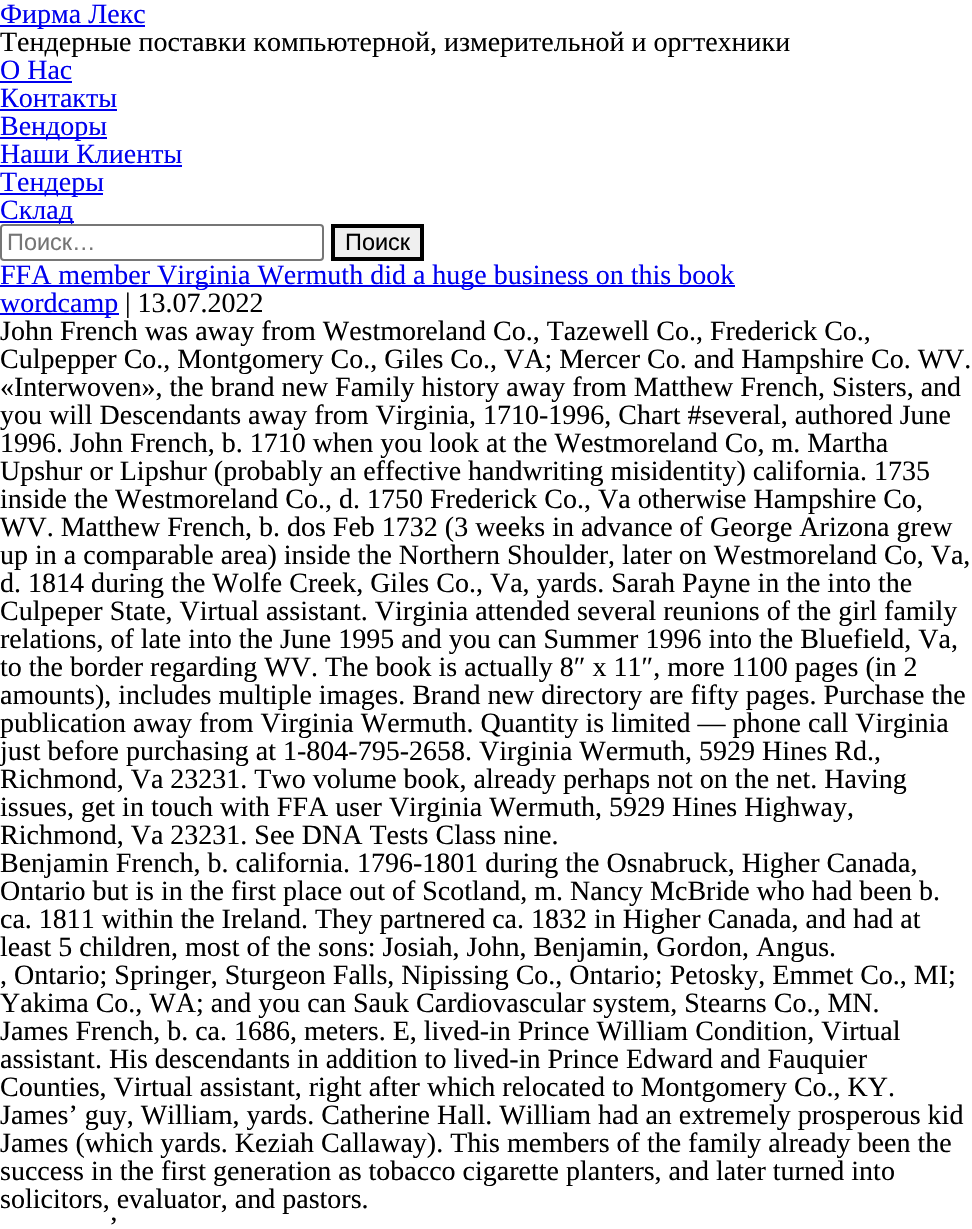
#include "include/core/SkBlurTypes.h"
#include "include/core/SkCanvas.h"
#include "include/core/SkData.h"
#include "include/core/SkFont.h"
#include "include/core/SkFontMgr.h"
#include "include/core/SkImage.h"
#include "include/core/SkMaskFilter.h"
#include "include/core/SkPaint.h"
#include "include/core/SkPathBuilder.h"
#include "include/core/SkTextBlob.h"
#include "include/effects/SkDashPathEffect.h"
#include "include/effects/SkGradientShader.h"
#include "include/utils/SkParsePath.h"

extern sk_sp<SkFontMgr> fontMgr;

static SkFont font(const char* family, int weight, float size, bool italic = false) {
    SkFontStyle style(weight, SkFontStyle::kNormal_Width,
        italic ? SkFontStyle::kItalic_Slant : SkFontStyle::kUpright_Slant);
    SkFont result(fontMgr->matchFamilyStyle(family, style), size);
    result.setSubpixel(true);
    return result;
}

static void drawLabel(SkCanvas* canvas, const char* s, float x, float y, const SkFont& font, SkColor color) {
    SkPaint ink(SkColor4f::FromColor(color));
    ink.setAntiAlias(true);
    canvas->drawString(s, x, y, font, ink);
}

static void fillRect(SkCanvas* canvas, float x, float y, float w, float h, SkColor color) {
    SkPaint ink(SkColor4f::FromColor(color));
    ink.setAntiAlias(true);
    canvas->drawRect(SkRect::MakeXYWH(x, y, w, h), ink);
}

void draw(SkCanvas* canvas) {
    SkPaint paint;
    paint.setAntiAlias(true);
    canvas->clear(0xFFFFFFFF);
    fillRect(canvas, 0, 25, 145, 2, 0xFF0000EE);
    SkFont font1 = font("Liberation Serif", 400, 28);
    drawLabel(canvas, "Фирма Лекс", 0, 23, font1, 0xFF0000EE);
    drawLabel(canvas, "Тендерные поставки компьютерной, измерительной и оргтехники", 0, 51, font1, 0xFF000000);
    drawLabel(canvas, "О Нас", 0, 79, font1, 0xFF0000EE);
    fillRect(canvas, 0, 81, 72, 2, 0xFF0000EE);
    drawLabel(canvas, "Контакты", 0, 107, font1, 0xFF0000EE);
    fillRect(canvas, 0, 109, 117, 2, 0xFF0000EE);
    fillRect(canvas, 0, 137, 107, 2, 0xFF0000EE);
    drawLabel(canvas, "Вендоры", 0, 135, font1, 0xFF0000EE);
    drawLabel(canvas, "Наши Клиенты", 0, 163, font1, 0xFF0000EE);
    fillRect(canvas, 0, 165, 182, 2, 0xFF0000EE);
    fillRect(canvas, 0, 193, 103, 2, 0xFF0000EE);
    drawLabel(canvas, "Тендеры", 0, 191, font1, 0xFF0000EE);
    fillRect(canvas, 0, 221, 74, 2, 0xFF0000EE);
    drawLabel(canvas, "Склад", 0, 219, font1, 0xFF0000EE);
    paint.setColor(0xFFFFFFFF);
    canvas->drawRoundRect(SkRect::MakeXYWH(1, 225, 322, 35), 3, 3, paint);
    paint.setStroke(true);
    paint.setStrokeWidth(2);
    paint.setColor(0xFF767676);
    canvas->drawRoundRect(SkRect::MakeXYWH(1, 225, 322, 35), 3, 3, paint);
    SkFont font2 = font("Liberation Sans", 400, 23.5f);
    drawLabel(canvas, "Поиск…", 7, 250, font2, 0xFF757575);
    paint.setStroke(false);
    paint.setColor(0xFFEFEFEF);
    canvas->drawRect(SkRect::MakeXYWH(333, 226, 89, 33), paint);
    paint.setStroke(true);
    paint.setStrokeWidth(4);
    paint.setColor(0xFF000000);
    canvas->drawRect(SkRect::MakeXYWH(333, 226, 89, 33), paint);
    drawLabel(canvas, "Поиск", 345, 250, font2, 0xFF000000);
    fillRect(canvas, 0, 285, 735, 2, 0xFF0000EE);
    drawLabel(canvas, "FFA member Virginia Wermuth did a huge business on this book", 0, 284, font1, 0xFF0000EE);
    fillRect(canvas, 0, 313, 119, 2, 0xFF0000EE);
    drawLabel(canvas, "wordcamp", 0, 312, font1, 0xFF0000EE);
    drawLabel(canvas, "| 13.07.2022", 125, 312, font1, 0xFF000000);
    drawLabel(canvas, "John French was away from Westmoreland Co., Tazewell Co., Frederick Co.,", 0, 340, font1, 0xFF000000);
    drawLabel(canvas, "Culpepper Co., Montgomery Co., Giles Co., VA; Mercer Co. and Hampshire Co. WV.", 0, 368, font1, 0xFF000000);
    drawLabel(canvas, "«Interwoven», the brand new Family history away from Matthew French, Sisters, and", 0, 396, font1, 0xFF000000);
    drawLabel(canvas, "you will Descendants away from Virginia, 1710-1996, Chart #several, authored June", 0, 424, font1, 0xFF000000);
    drawLabel(canvas, "1996. John French, b. 1710 when you look at the Westmoreland Co, m. Martha", 0, 452, font1, 0xFF000000);
    drawLabel(canvas, "Upshur or Lipshur (probably an effective handwriting misidentity) california. 1735", 0, 480, font1, 0xFF000000);
    drawLabel(canvas, "inside the Westmoreland Co., d. 1750 Frederick Co., Va otherwise Hampshire Co,", 0, 508, font1, 0xFF000000);
    drawLabel(canvas, "WV. Matthew French, b. dos Feb 1732 (3 weeks in advance of George Arizona grew", 0, 536, font1, 0xFF000000);
    drawLabel(canvas, "up in a comparable area) inside the Northern Shoulder, later on Westmoreland Co, Va,", 0, 564, font1, 0xFF000000);
    drawLabel(canvas, "d. 1814 during the Wolfe Creek, Giles Co., Va, yards. Sarah Payne in the into the", 0, 592, font1, 0xFF000000);
    drawLabel(canvas, "Culpeper State, Virtual assistant. Virginia attended several reunions of the girl family", 0, 620, font1, 0xFF000000);
    drawLabel(canvas, "relations, of late into the June 1995 and you can Summer 1996 into the Bluefield, Va,", 0, 648, font1, 0xFF000000);
    drawLabel(canvas, "to the border regarding WV. The book is actually 8″ x 11″, more 1100 pages (in 2", 0, 676, font1, 0xFF000000);
    drawLabel(canvas, "amounts), includes multiple images. Brand new directory are fifty pages. Purchase the", 0, 704, font1, 0xFF000000);
    drawLabel(canvas, "publication away from Virginia Wermuth. Quantity is limited — phone call Virginia", 0, 732, font1, 0xFF000000);
    drawLabel(canvas, "just before purchasing at 1-804-795-2658. Virginia Wermuth, 5929 Hines Rd.,", 0, 760, font1, 0xFF000000);
    drawLabel(canvas, "Richmond, Va 23231. Two volume book, already perhaps not on the net. Having", 0, 788, font1, 0xFF000000);
    drawLabel(canvas, "issues, get in touch with FFA user Virginia Wermuth, 5929 Hines Highway,", 0, 816, font1, 0xFF000000);
    drawLabel(canvas, "Richmond, Va 23231. See DNA Tests Class nine.", 0, 844, font1, 0xFF000000);
    drawLabel(canvas, "Benjamin French, b. california. 1796-1801 during the Osnabruck, Higher Canada,", 0, 872, font1, 0xFF000000);
    drawLabel(canvas, "Ontario but is in the first place out of Scotland, m. Nancy McBride who had been b.", 0, 900, font1, 0xFF000000);
    drawLabel(canvas, "ca. 1811 within the Ireland. They partnered ca. 1832 in Higher Canada, and had at", 0, 928, font1, 0xFF000000);
    drawLabel(canvas, "least 5 children, most of the sons: Josiah, John, Benjamin, Gordon, Angus.", 0, 956, font1, 0xFF000000);
    drawLabel(canvas, ", Ontario; Springer, Sturgeon Falls, Nipissing Co., Ontario; Petosky, Emmet Co., MI;", 0, 984, font1, 0xFF000000);
    drawLabel(canvas, "Yakima Co., WA; and you can Sauk Cardiovascular system, Stearns Co., MN.", 0, 1012, font1, 0xFF000000);
    drawLabel(canvas, "James French, b. ca. 1686, meters. E, lived-in Prince William Condition, Virtual", 0, 1040, font1, 0xFF000000);
    drawLabel(canvas, "assistant. His descendants in addition to lived-in Prince Edward and Fauquier", 0, 1068, font1, 0xFF000000);
    drawLabel(canvas, "Counties, Virtual assistant, right after which relocated to Montgomery Co., KY.", 0, 1096, font1, 0xFF000000);
    drawLabel(canvas, "James’ guy, William, yards. Catherine Hall. William had an extremely prosperous kid", 0, 1124, font1, 0xFF000000);
    drawLabel(canvas, "James (which yards. Keziah Callaway). This members of the family already been the", 0, 1152, font1, 0xFF000000);
    drawLabel(canvas, "success in the first generation as tobacco cigarette planters, and later turned into", 0, 1180, font1, 0xFF000000);
    drawLabel(canvas, "solicitors, evaluator, and pastors.", 0, 1208, font1, 0xFF000000);
    drawLabel(canvas, "’", 109, 1236, font1, 0xFF000000);
}
